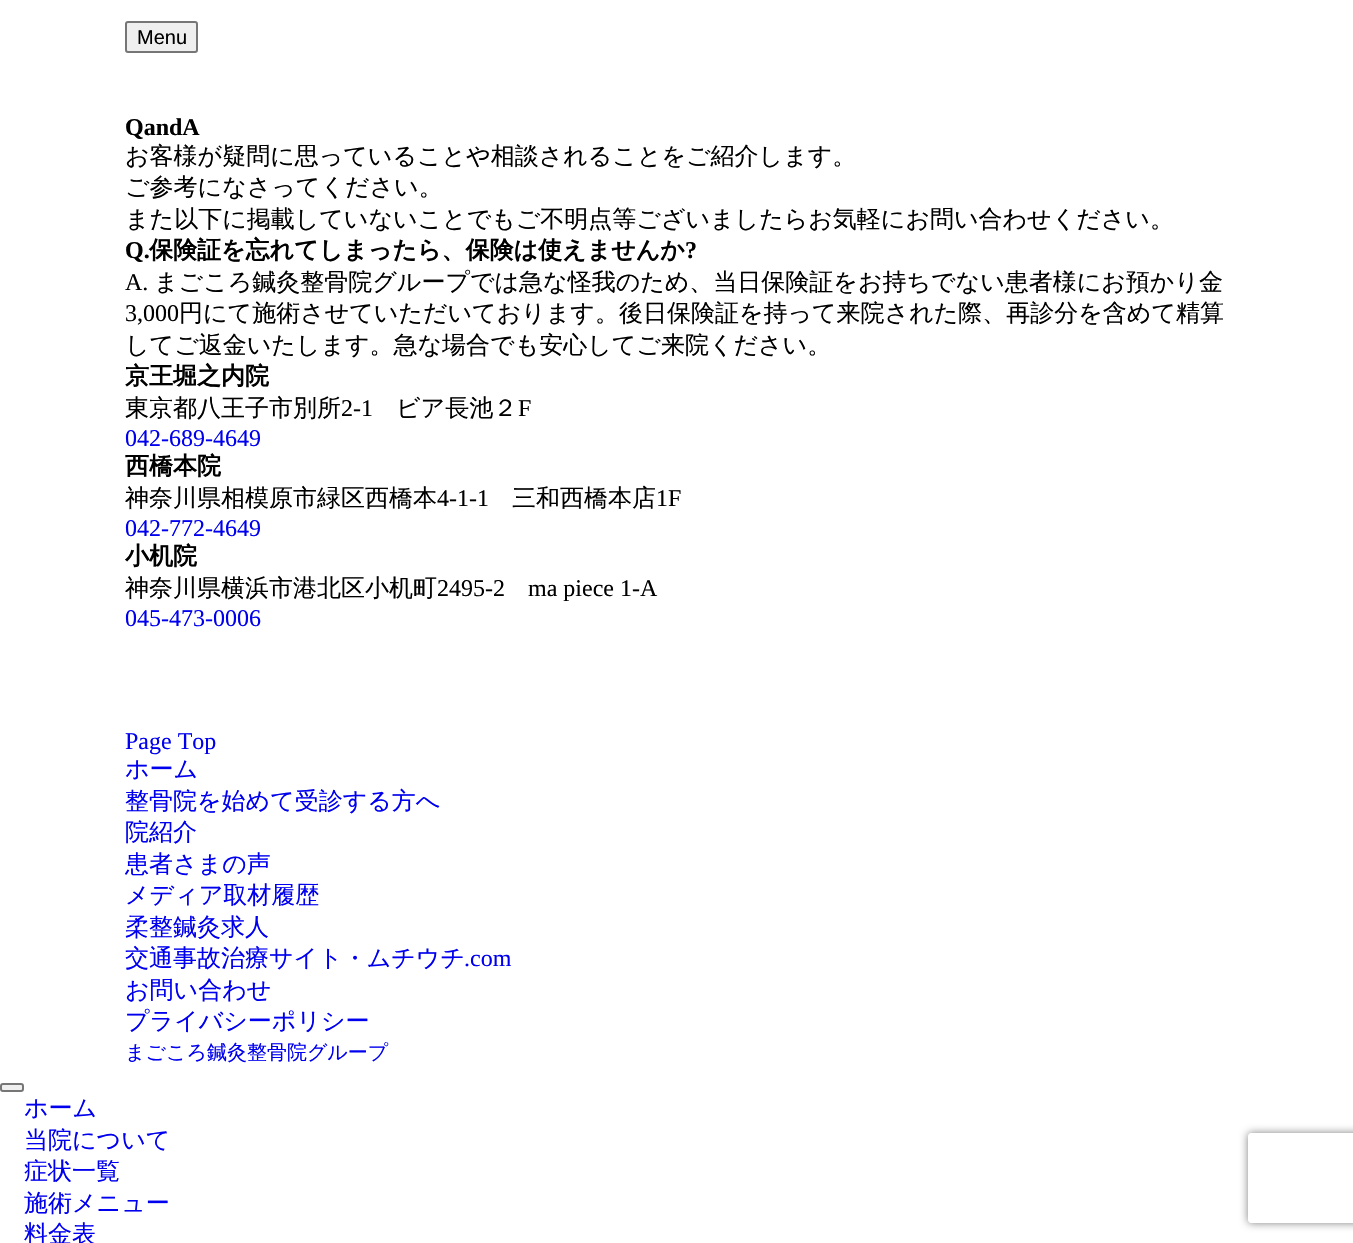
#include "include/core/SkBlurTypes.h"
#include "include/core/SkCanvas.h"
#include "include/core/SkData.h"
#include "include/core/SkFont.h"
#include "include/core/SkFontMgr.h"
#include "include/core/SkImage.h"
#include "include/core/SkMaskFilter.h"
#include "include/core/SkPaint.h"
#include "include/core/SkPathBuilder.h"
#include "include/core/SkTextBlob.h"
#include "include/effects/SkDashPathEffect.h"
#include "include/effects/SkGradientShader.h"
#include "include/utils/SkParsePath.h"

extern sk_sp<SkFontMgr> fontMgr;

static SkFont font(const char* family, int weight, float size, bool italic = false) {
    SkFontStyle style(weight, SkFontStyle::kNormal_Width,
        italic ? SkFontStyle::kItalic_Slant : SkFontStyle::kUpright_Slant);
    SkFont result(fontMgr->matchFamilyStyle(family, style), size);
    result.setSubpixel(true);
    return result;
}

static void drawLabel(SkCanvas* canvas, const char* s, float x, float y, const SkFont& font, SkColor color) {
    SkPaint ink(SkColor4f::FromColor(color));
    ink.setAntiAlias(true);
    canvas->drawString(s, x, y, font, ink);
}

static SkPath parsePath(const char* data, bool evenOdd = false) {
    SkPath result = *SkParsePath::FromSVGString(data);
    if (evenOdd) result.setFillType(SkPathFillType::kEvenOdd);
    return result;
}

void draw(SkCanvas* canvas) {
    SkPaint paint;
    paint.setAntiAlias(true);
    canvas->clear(0xFFFFFFFF);
    paint.setColor(0xFFEFEFEF);
    canvas->drawRoundRect(SkRect::MakeXYWH(126, 22, 71, 30), 2, 2, paint);
    paint.setStroke(true);
    paint.setStrokeWidth(2);
    paint.setColor(0xFF767676);
    canvas->drawRoundRect(SkRect::MakeXYWH(126, 22, 71, 30), 2, 2, paint);
    SkFont font1 = font("Liberation Sans", 400, 20);
    drawLabel(canvas, "Menu", 137, 44, font1, 0xFF000000);
    SkFont font2 = font("Liberation Serif", 700, 24);
    drawLabel(canvas, "QandA", 125, 135, font2, 0xFF000000);
    SkFont font3 = font("WenQuanYi Zen Hei", 500, 24);
    drawLabel(canvas, "お客様が疑問に思っていることや相談されることをご紹介します。", 125, 164, font3, 0xFF000000);
    drawLabel(canvas, "ご参考になさってください。", 125, 195, font3, 0xFF000000);
    drawLabel(canvas, "また以下に掲載していないことでもご不明点等ございましたらお気軽にお問い合わせください。", 125, 227, font3, 0xFF000000);
    drawLabel(canvas, "Q.", 125, 258, font2, 0xFF000000);
    SkFont font4 = font("WenQuanYi Zen Hei", 700, 24);
    drawLabel(canvas, "保険証を忘れてしまったら、保険は使えませんか", 149, 258, font4, 0xFF000000);
    drawLabel(canvas, "?", 685, 258, font2, 0xFF000000);
    SkFont font5 = font("Liberation Serif", 400, 24);
    drawLabel(canvas, "A.", 125, 290, font5, 0xFF000000);
    drawLabel(canvas, "まごころ鍼灸整骨院グループでは急な怪我のため、当日保険証をお持ちでない患者様にお預かり金", 154, 290, font3, 0xFF000000);
    drawLabel(canvas, "3,000", 125, 321, font5, 0xFF000000);
    drawLabel(canvas, "円にて施術させていただいております。後日保険証を持って来院された際、再診分を含めて精算", 179, 321, font3, 0xFF000000);
    drawLabel(canvas, "してご返金いたします。急な場合でも安心してご来院ください。", 125, 353, font3, 0xFF000000);
    drawLabel(canvas, "京王堀之内院", 125, 384, font4, 0xFF000000);
    drawLabel(canvas, "東京都八王子市別所", 125, 416, font3, 0xFF000000);
    drawLabel(canvas, "2-1", 341, 416, font5, 0xFF000000);
    drawLabel(canvas, "ビア長池２", 396, 416, font3, 0xFF000000);
    drawLabel(canvas, "F", 518, 416, font5, 0xFF000000);
    drawLabel(canvas, "042-689-4649", 125, 446, font5, 0xFF0000EE);
    drawLabel(canvas, "西橋本院", 125, 474, font4, 0xFF000000);
    drawLabel(canvas, "神奈川県相模原市緑区西橋本", 125, 506, font3, 0xFF000000);
    drawLabel(canvas, "4-1-1", 437, 506, font5, 0xFF000000);
    drawLabel(canvas, "三和西橋本店", 512, 506, font3, 0xFF000000);
    drawLabel(canvas, "1F", 656, 506, font5, 0xFF000000);
    drawLabel(canvas, "042-772-4649", 125, 536, font5, 0xFF0000EE);
    drawLabel(canvas, "小机院", 125, 564, font4, 0xFF000000);
    drawLabel(canvas, "神奈川県横浜市港北区小机町", 125, 596, font3, 0xFF000000);
    drawLabel(canvas, "2495-2", 437, 596, font5, 0xFF000000);
    drawLabel(canvas, "ma piece 1-A", 528, 596, font5, 0xFF000000);
    drawLabel(canvas, "045-473-0006", 125, 626, font5, 0xFF0000EE);
    drawLabel(canvas, "Page Top", 125, 749, font5, 0xFF0000EE);
    drawLabel(canvas, "ホーム", 125, 777, font3, 0xFF0000EE);
    drawLabel(canvas, "整骨院を始めて受診する方へ", 125, 809, font3, 0xFF0000EE);
    drawLabel(canvas, "院紹介", 125, 840, font3, 0xFF0000EE);
    drawLabel(canvas, "患者さまの声", 125, 872, font3, 0xFF0000EE);
    drawLabel(canvas, "メディア取材履歴", 125, 903, font3, 0xFF0000EE);
    drawLabel(canvas, "柔整鍼灸求人", 125, 935, font3, 0xFF0000EE);
    drawLabel(canvas, "交通事故治療サイト・ムチウチ", 125, 966, font3, 0xFF0000EE);
    drawLabel(canvas, ".com", 464, 966, font5, 0xFF0000EE);
    drawLabel(canvas, "お問い合わせ", 125, 998, font3, 0xFF0000EE);
    drawLabel(canvas, "プライバシーポリシー", 125, 1029, font3, 0xFF0000EE);
    SkFont font6 = font("WenQuanYi Zen Hei", 500, 20);
    drawLabel(canvas, "まごころ鍼灸整骨院グループ", 125, 1059, font6, 0xFF0000EE);
    paint.setStroke(false);
    paint.setColor(0xFFEFEFEF);
    canvas->drawRoundRect(SkRect::MakeXYWH(1, 1084, 22, 7), 2, 2, paint);
    paint.setStroke(true);
    paint.setColor(0xFF767676);
    canvas->drawRoundRect(SkRect::MakeXYWH(1, 1084, 22, 7), 2, 2, paint);
    drawLabel(canvas, "ホーム", 24, 1116, font3, 0xFF0000EE);
    drawLabel(canvas, "当院について", 24, 1148, font3, 0xFF0000EE);
    drawLabel(canvas, "症状一覧", 24, 1179, font3, 0xFF0000EE);
    drawLabel(canvas, "施術メニュー", 24, 1211, font3, 0xFF0000EE);
    drawLabel(canvas, "料金表", 24, 1242, font3, 0xFF0000EE);
    canvas->save();
    canvas->clipPath(parsePath("M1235 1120H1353V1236H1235ZM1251 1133H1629C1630.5 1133 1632 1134.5 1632 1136V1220C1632 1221.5 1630.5 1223 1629 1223H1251C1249.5 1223 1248 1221.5 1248 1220V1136C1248 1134.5 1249.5 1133 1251 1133Z", true), true);
    paint.setStroke(false);
    paint.setColor(0xFF808080);
    paint.setMaskFilter(SkMaskFilter::MakeBlur(kNormal_SkBlurStyle, 4));
    canvas->drawRoundRect(SkRect::MakeXYWH(1248, 1133, 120, 90), 3, 3, paint);
    paint.setMaskFilter(nullptr);
    canvas->restore();
}
